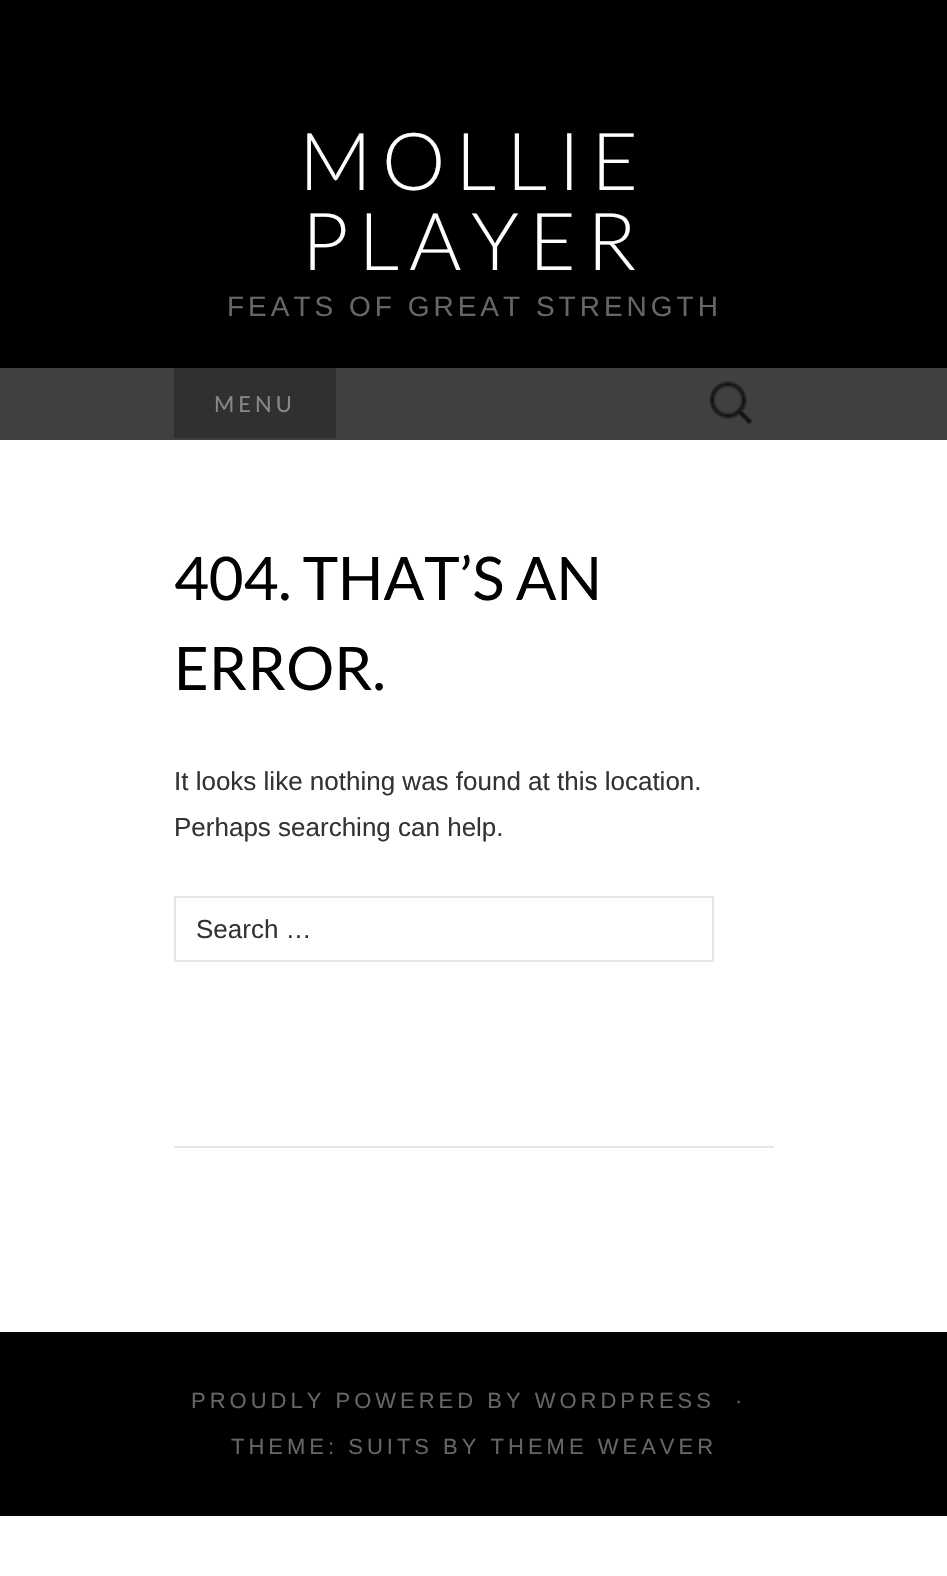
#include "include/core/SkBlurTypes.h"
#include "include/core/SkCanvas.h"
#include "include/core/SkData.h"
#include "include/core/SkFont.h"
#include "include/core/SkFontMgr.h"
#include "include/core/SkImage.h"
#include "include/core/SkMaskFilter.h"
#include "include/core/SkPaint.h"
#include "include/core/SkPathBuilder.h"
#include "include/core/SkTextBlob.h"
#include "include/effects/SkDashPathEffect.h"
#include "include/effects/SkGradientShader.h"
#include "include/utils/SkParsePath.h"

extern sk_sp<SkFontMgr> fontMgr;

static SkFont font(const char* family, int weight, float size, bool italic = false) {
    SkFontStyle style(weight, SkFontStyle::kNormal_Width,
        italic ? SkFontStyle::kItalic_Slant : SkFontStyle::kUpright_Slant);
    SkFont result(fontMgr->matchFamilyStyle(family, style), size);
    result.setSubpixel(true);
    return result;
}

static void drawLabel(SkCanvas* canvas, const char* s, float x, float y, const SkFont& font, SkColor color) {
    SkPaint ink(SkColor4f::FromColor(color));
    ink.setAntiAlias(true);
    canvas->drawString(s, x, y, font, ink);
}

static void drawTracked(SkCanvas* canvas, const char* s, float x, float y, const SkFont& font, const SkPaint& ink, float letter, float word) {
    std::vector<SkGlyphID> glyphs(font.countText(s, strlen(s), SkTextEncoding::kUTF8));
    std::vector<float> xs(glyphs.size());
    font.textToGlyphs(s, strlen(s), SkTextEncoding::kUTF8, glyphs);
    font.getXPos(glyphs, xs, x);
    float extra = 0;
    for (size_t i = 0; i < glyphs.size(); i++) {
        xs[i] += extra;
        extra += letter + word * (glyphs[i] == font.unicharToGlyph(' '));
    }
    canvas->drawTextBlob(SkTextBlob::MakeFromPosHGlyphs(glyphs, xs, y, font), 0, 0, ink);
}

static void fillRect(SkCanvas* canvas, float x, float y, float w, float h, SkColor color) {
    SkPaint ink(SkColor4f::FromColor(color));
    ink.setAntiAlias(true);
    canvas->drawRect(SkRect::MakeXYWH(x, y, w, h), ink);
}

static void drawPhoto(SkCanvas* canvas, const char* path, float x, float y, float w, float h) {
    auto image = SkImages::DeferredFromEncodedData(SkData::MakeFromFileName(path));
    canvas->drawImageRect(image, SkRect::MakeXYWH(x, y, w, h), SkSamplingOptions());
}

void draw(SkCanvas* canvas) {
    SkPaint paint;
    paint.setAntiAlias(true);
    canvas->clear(0xFFFFFFFF);
    fillRect(canvas, 0, 0, 947, 368, 0xFF000000);
    SkFont font1 = font("Lato", 300, 80);
    paint.setColor(0xFFFFFFFF);
    drawTracked(canvas, "MOLLIE", 299, 190, font1, paint, 10, 0);
    drawTracked(canvas, "PLAYER", 301, 270, font1, paint, 10, 0);
    SkFont font2 = font("Liberation Sans", 400, 28);
    paint.setColor(0xFF666666);
    drawTracked(canvas, "FEATS OF GREAT STRENGTH", 227, 316, font2, paint, 4, 0);
    fillRect(canvas, 0, 368, 947, 72, 0xFF404040);
    fillRect(canvas, 174, 368, 162, 70, 0xFF303030);
    SkFont font3 = font("Lato", 400, 22);
    paint.setColor(0xFF888888);
    drawTracked(canvas, "MENU", 214, 412, font3, paint, 4, 0);
    drawPhoto(canvas, "assets/img1.png", 710, 381, 43, 44);
    fillRect(canvas, 174, 1146, 600, 2, 0xFFE6E6E6);
    SkFont font4 = font("Lato", 400, 60);
    drawLabel(canvas, "404. THAT’S AN", 174, 600, font4, 0xFF000000);
    drawLabel(canvas, "ERROR.", 174, 690, font4, 0xFF000000);
    SkFont font5 = font("Liberation Sans", 400, 26);
    drawLabel(canvas, "It looks like nothing was found at this location.", 174, 790, font5, 0xFF333333);
    drawLabel(canvas, "Perhaps searching can help.", 174, 836, font5, 0xFF333333);
    paint.setStroke(true);
    paint.setStrokeWidth(2);
    paint.setColor(0xFFE6E6E6);
    canvas->drawRect(SkRect::MakeXYWH(175, 897, 538, 64), paint);
    drawLabel(canvas, "Search …", 196, 938, font5, 0xFF333333);
    fillRect(canvas, 0, 1332, 947, 184, 0xFF000000);
    SkFont font6 = font("Liberation Sans", 400, 22);
    paint.setStroke(false);
    paint.setColor(0xFF666666);
    drawTracked(canvas, "PROUDLY POWERED BY WORDPRESS", 191, 1408, font6, paint, 4, 0);
    drawTracked(canvas, "·", 735, 1408, font6, paint, 4, 0);
    drawTracked(canvas, "THEME: SUITS BY THEME WEAVER", 231, 1454, font6, paint, 4, 0);
}
